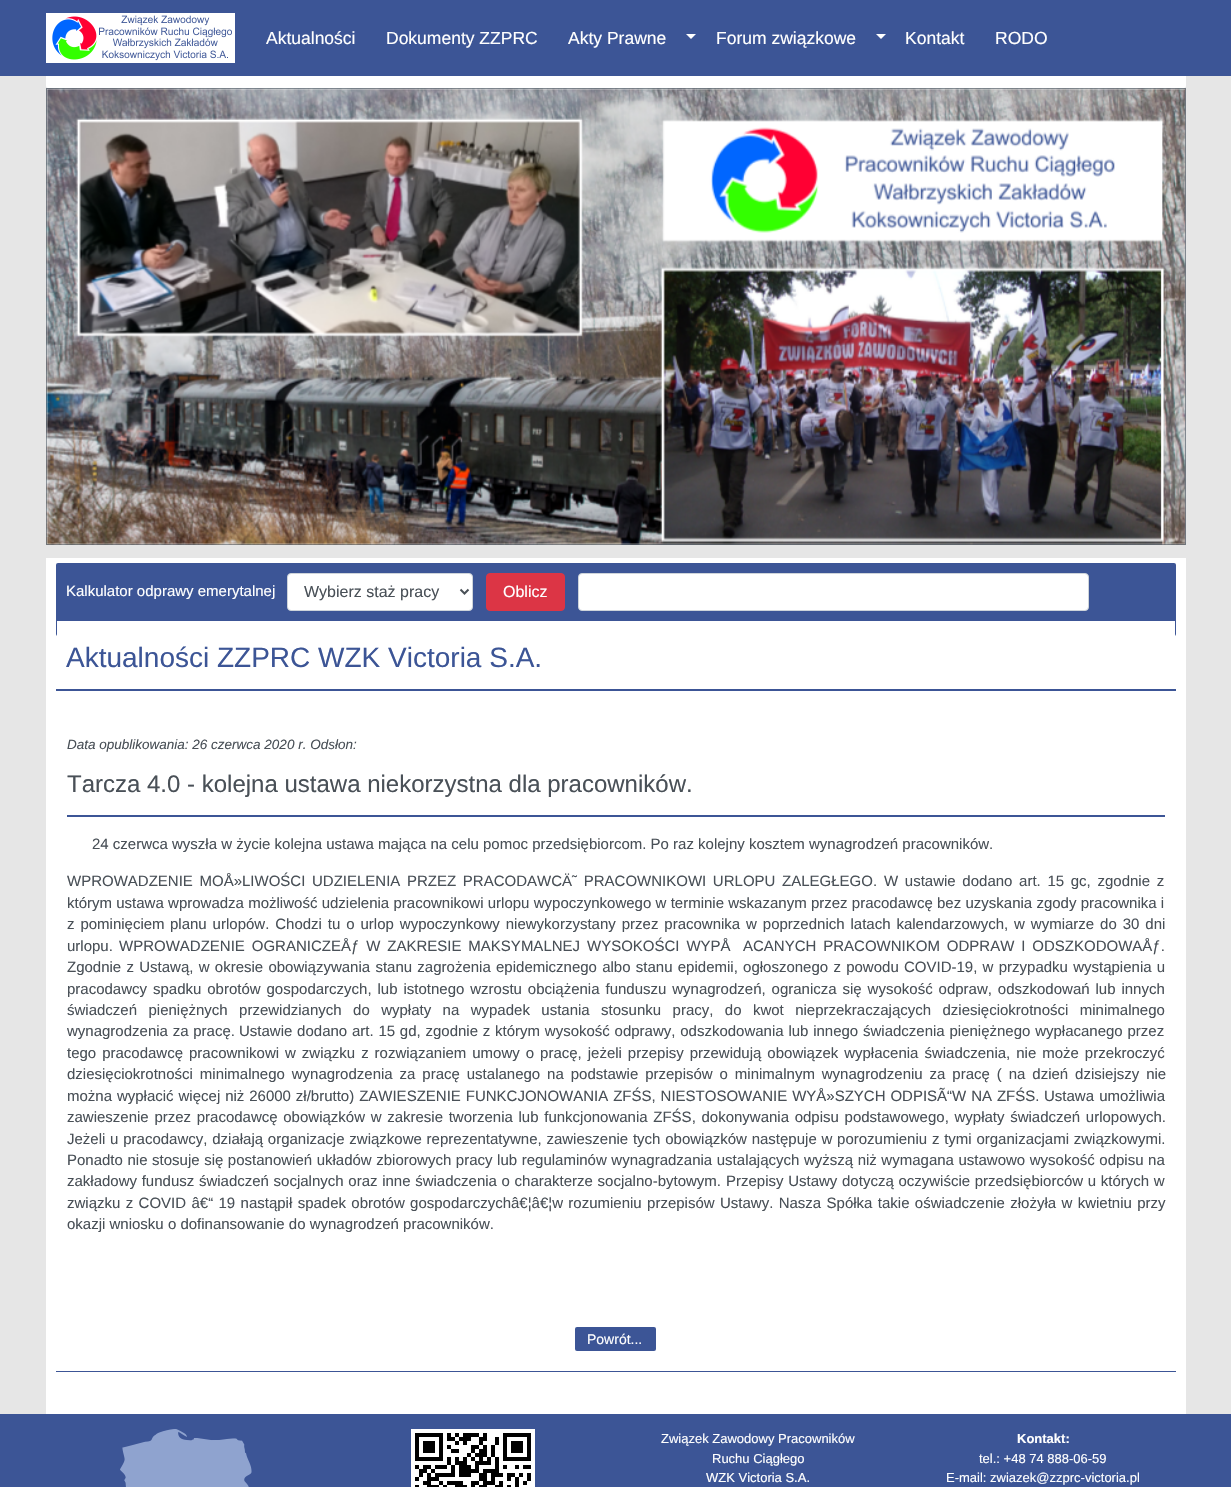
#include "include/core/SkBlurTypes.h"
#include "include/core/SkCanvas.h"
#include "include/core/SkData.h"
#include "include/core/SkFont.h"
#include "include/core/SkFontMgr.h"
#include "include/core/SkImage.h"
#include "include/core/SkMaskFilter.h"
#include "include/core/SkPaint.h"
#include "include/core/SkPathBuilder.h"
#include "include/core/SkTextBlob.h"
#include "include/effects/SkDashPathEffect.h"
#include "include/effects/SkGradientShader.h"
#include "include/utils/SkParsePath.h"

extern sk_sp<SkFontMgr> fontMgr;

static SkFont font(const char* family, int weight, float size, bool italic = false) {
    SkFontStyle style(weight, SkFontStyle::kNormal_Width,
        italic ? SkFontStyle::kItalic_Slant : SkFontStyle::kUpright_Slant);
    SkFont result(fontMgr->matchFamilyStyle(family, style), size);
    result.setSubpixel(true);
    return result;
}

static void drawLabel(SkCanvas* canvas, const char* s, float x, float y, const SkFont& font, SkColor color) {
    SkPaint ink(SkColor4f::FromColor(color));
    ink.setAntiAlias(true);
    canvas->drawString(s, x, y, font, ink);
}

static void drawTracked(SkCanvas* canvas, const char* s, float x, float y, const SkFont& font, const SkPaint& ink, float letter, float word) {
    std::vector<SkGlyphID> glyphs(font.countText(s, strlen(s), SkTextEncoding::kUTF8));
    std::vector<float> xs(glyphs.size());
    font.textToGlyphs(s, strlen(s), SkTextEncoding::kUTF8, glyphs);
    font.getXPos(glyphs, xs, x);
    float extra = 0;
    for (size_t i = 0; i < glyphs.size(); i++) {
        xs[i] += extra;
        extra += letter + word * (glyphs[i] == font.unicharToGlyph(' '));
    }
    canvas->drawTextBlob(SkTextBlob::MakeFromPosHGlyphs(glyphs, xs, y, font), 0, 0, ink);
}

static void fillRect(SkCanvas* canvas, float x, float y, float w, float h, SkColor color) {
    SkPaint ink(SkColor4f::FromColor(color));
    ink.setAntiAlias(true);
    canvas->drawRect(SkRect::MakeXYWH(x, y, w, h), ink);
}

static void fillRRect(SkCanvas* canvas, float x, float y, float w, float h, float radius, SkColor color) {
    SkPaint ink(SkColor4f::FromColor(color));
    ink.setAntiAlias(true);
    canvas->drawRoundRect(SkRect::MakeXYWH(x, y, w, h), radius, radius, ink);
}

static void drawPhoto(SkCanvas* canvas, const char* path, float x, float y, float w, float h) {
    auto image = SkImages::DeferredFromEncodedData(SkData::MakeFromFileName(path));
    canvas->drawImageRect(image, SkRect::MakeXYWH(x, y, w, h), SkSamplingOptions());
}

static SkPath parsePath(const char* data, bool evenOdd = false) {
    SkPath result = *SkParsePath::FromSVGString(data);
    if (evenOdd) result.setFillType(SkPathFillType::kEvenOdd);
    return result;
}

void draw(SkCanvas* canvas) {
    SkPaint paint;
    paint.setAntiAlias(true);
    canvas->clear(0xFFE6E6E6);
    fillRRect(canvas, 46, 19, 1140, 69, 2, 0xFFFFFFFF);
    fillRect(canvas, 0, 0, 1231, 76, 0xFF3C5596);
    drawPhoto(canvas, "assets/img1.png", 46, 13, 189, 50);
    SkFont font1 = font("Liberation Sans", 400, 17.5f);
    drawLabel(canvas, "Aktualności", 266, 44, font1, 0xFFFFFFFF);
    drawLabel(canvas, "Dokumenty ZZPRC", 386, 44, font1, 0xFFFFFFFF);
    drawLabel(canvas, "Akty Prawne", 568, 44, font1, 0xFFFFFFFF);
    paint.setColor(0xFFFFFFFF);
    canvas->drawPath(parsePath("M686 34H696L691 39Z"), paint);
    drawLabel(canvas, "Forum związkowe", 716, 44, font1, 0xFFFFFFFF);
    canvas->drawPath(parsePath("M876 34H886L881 39Z"), paint);
    drawLabel(canvas, "Kontakt", 905, 44, font1, 0xFFFFFFFF);
    drawLabel(canvas, "RODO", 995, 44, font1, 0xFFFFFFFF);
    paint.setStroke(true);
    paint.setStrokeWidth(1);
    paint.setColor(0xFF707982);
    canvas->drawRect(SkRect::MakeXYWH(46.5f, 88.5f, 1139, 456), paint);
    drawPhoto(canvas, "assets/img2.png", 46, 88, 1140, 457);
    fillRect(canvas, 46, 558, 1140, 856, 0xFFFFFFFF);
    fillRRect(canvas, 56, 563, 1120, 73, 2, 0xFF3C5596);
    fillRect(canvas, 57, 621, 1118, 15, 0xFFFFFFFF);
    SkFont font2 = font("Liberation Sans", 400, 15);
    drawLabel(canvas, "Kalkulator odprawy emerytalnej", 66, 596, font2, 0xFFFFFFFF);
    paint.setStroke(false);
    paint.setColor(0xFFFFFFFF);
    canvas->drawRoundRect(SkRect::MakeXYWH(287.5f, 573.5f, 185, 37), 3.5f, 3.5f, paint);
    paint.setStroke(true);
    paint.setColor(0xFFCED4DA);
    canvas->drawRoundRect(SkRect::MakeXYWH(287.5f, 573.5f, 185, 37), 3.5f, 3.5f, paint);
    paint.setStrokeWidth(2);
    paint.setColor(0xFF495057);
    canvas->drawPath(parsePath("M460.5 589.5L464.5 593.5L468.5 589.5"), paint);
    SkFont font3 = font("Liberation Sans", 400, 16);
    drawLabel(canvas, "Wybierz staż pracy", 304, 597, font3, 0xFF495057);
    paint.setStroke(false);
    paint.setColor(0xFFDC3545);
    canvas->drawRoundRect(SkRect::MakeXYWH(486.5f, 573.5f, 78, 37), 3.5f, 3.5f, paint);
    paint.setStroke(true);
    paint.setStrokeWidth(1);
    canvas->drawRoundRect(SkRect::MakeXYWH(486.5f, 573.5f, 78, 37), 3.5f, 3.5f, paint);
    drawLabel(canvas, "Oblicz", 503, 597, font3, 0xFFFFFFFF);
    paint.setStroke(false);
    paint.setColor(0xFFFFFFFF);
    canvas->drawRoundRect(SkRect::MakeXYWH(578.5f, 573.5f, 510, 37), 3.5f, 3.5f, paint);
    paint.setStroke(true);
    paint.setColor(0xFFCED4DA);
    canvas->drawRoundRect(SkRect::MakeXYWH(578.5f, 573.5f, 510, 37), 3.5f, 3.5f, paint);
    fillRect(canvas, 56, 689, 1120, 2, 0xFF3C5596);
    SkFont font4 = font("Liberation Sans", 400, 28);
    drawLabel(canvas, "Aktualności ZZPRC WZK Victoria S.A.", 66, 667, font4, 0xFF3C5596);
    SkFont font5 = font("Liberation Sans", 400, 13.5f, true);
    drawLabel(canvas, "Data opublikowania: 26 czerwca 2020 r. Odsłon:", 67, 749, font5, 0xFF495057);
    SkFont font6 = font("Liberation Sans", 400, 24);
    drawLabel(canvas, "Tarcza 4.0 - kolejna ustawa niekorzystna dla pracowników.", 67, 792, font6, 0xFF495057);
    fillRect(canvas, 67, 815, 1098, 2, 0xFF3C5596);
    drawLabel(canvas, "24 czerwca wyszła w życie kolejna ustawa mająca na celu pomoc przedsiębiorcom. Po raz kolejny kosztem wynagrodzeń pracowników.", 92, 849, font2, 0xFF495057);
    paint.setStroke(false);
    paint.setColor(0xFF495057);
    drawTracked(canvas, "WPROWADZENIE MOÅ»LIWOŚCI UDZIELENIA PRZEZ PRACODAWCÄ˜ PRACOWNIKOWI URLOPU ZALEGŁEGO.", 67, 886, font2, paint, 0, 2.5f);
    drawTracked(canvas, "W ustawie dodano art. 15 gc, zgodnie z", 884, 886, font2, paint, 0, 2.5f);
    drawTracked(canvas, "którym ustawa wprowadza możliwość udzielenia pracownikowi urlopu wypoczynkowego w terminie wskazanym przez pracodawcę bez uzyskania zgody pracownika i", 67, 908, font2, paint, 0, 0.1f);
    drawTracked(canvas, "z pominięciem", 67, 929, font2, paint, 0, 1.75f);
    drawTracked(canvas, "planu urlopów. Chodzi tu o urlop wypoczynkowy niewykorzystany przez pracownika w poprzednich latach kalendarzowych, w wymiarze do 30 dni", 170, 929, font2, paint, 0, 1.75f);
    drawLabel(canvas, "urlopu.", 67, 951, font2, 0xFF495057);
    drawTracked(canvas, "WPROWADZENIE OGRANICZEÅƒ W ZAKRESIE MAKSYMALNEJ WYSOKOŚCI WYPÅ", 119, 951, font2, paint, 0, 2.75f);
    drawTracked(canvas, "ACANYCH PRACOWNIKOM ODPRAW I ODSZKODOWAÅƒ.", 743, 951, font2, paint, 0, 2.75f);
    drawTracked(canvas, "Zgodnie z Ustawą, w okresie obowiązywania stanu zagrożenia epidemicznego albo stanu epidemii, ogłoszonego z powodu COVID-19, w przypadku wystąpienia u", 67, 972, font2, paint, 0, 1.1f);
    drawTracked(canvas, "pracodawcy spadku obrotów gospodarczych, lub istotnego wzrostu obciążenia funduszu wynagrodzeń, ogranicza się wysokość odpraw, odszkodowań lub innych", 67, 994, font2, paint, 0, 1.75f);
    drawTracked(canvas, "świadczeń pieniężnych przewidzianych do wypłaty na wypadek ustania stosunku pracy, do kwot nieprzekraczających dziesięciokrotności minimalnego", 67, 1015, font2, paint, 0, 7.25f);
    drawTracked(canvas, "wynagrodzenia za pracę.", 67, 1036, font2, paint, 0, 0.6f);
    drawTracked(canvas, "Ustawie dodano art. 15 gd, zgodnie z którym wysokość odprawy, odszkodowania lub innego świadczenia pieniężnego wypłacanego przez", 239, 1036, font2, paint, 0, 0.6f);
    drawTracked(canvas, "tego pracodawcę pracownikowi w związku z rozwiązaniem umowy o pracę, jeżeli przepisy przewidują obowiązek wypłacenia świadczenia, nie może przekroczyć", 67, 1058, font2, paint, 0, 1.8f);
    drawTracked(canvas, "dziesięciokrotności minimalnego wynagrodzenia za pracę ustalanego na podstawie przepisów o minimalnym wynagrodzeniu za pracę ( na dzień dzisiejszy nie", 67, 1079, font2, paint, 0, 2.75f);
    drawTracked(canvas, "można wypłacić więcej niż 26000 zł/brutto) ZAWIESZENIE FUNKCJONOWANIA ZFŚS, NIESTOSOWANIE WYÅ»SZYCH ODPISÃ“W NA ZFŚS.", 67, 1101, font2, paint, 0, 0.75f);
    drawTracked(canvas, "Ustawa umożliwia", 1044, 1101, font2, paint, 0, 1);
    drawTracked(canvas, "zawieszenie przez pracodawcę obowiązków w zakresie tworzenia lub funkcjonowania ZFŚS, dokonywania odpisu podstawowego, wypłaty świadczeń urlopowych.", 67, 1122, font2, paint, 0, 1.5f);
    drawTracked(canvas, "Jeżeli u pracodawcy, działają organizacje związkowe reprezentatywne, zawieszenie tych obowiązków następuje w porozumieniu z tymi organizacjami związkowymi.", 67, 1144, font2, paint, 0, 0.6f);
    drawTracked(canvas, "Ponadto nie stosuje się postanowień układów zbiorowych pracy lub regulaminów wynagradzania ustalających wyższą niż wymagana ustawowo wysokość odpisu na", 67, 1165, font2, paint, 0, 0.4f);
    drawTracked(canvas, "zakładowy fundusz świadczeń socjalnych oraz inne świadczenia o charakterze socjalno-bytowym.", 67, 1186, font2, paint, 0, 0.5f);
    drawTracked(canvas, "Przepisy Ustawy dotyczą oczywiście przedsiębiorców u których w", 726, 1186, font2, paint, 0, 0.5f);
    drawTracked(canvas, "związku z COVID â€“ 19 nastąpił spadek obrotów gospodarczychâ€¦â€¦w rozumieniu przepisów Ustawy. Nasza Spółka takie oświadczenie złożyła w kwietniu przy", 67, 1208, font2, paint, 0, 1.2f);
    drawLabel(canvas, "okazji wniosku o dofinansowanie do wynagrodzeń pracowników.", 67, 1229, font2, 0xFF495057);
    fillRRect(canvas, 575, 1327, 81, 24, 2, 0xFF3C5596);
    SkFont font7 = font("Liberation Sans", 400, 14);
    drawLabel(canvas, "Powrót...", 587, 1344, font7, 0xFFFFFFFF);
    fillRect(canvas, 56, 1371, 1120, 1, 0xFF3C5596);
    fillRect(canvas, 0, 1414, 1231, 73, 0xFF3C5596);
    drawPhoto(canvas, "assets/img3.png", 120, 1429, 132, 58);
    drawPhoto(canvas, "assets/img4.png", 411, 1429, 124, 58);
    SkFont font8 = font("Liberation Sans", 400, 13);
    drawLabel(canvas, "Związek Zawodowy Pracowników", 661, 1443, font8, 0xFFFFFFFF);
    drawLabel(canvas, "Ruchu Ciągłego", 712, 1463, font8, 0xFFFFFFFF);
    drawLabel(canvas, "WZK Victoria S.A.", 706, 1482, font8, 0xFFFFFFFF);
    SkFont font9 = font("Liberation Sans", 700, 13);
    drawLabel(canvas, "Kontakt:", 1017, 1443, font9, 0xFFFFFFFF);
    drawLabel(canvas, "tel.: +48 74 888-06-59", 979, 1463, font8, 0xFFFFFFFF);
    drawLabel(canvas, "E-mail: zwiazek@zzprc-victoria.pl", 946, 1482, font8, 0xFFFFFFFF);
}
